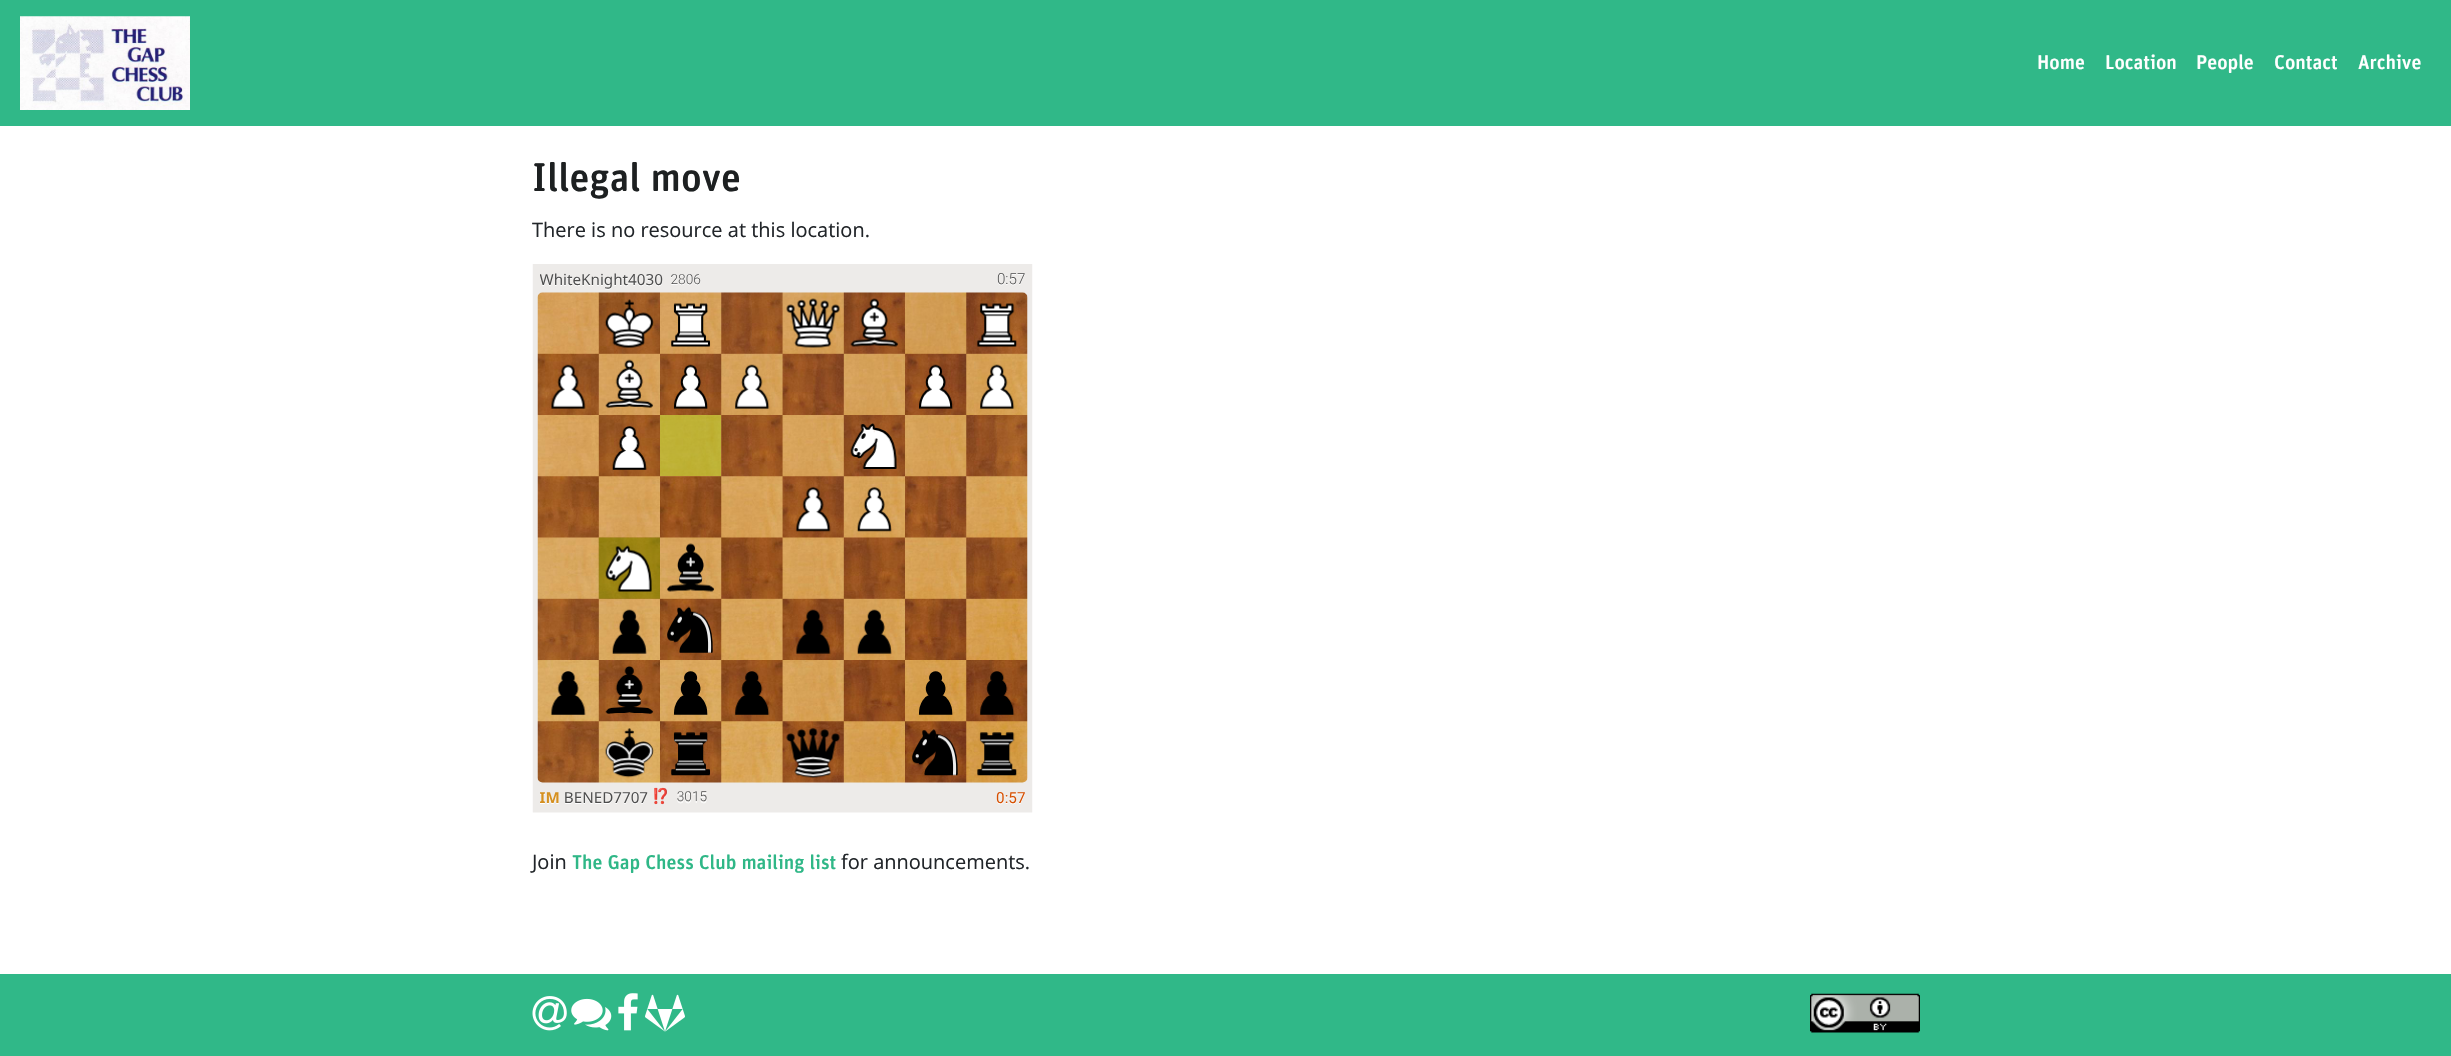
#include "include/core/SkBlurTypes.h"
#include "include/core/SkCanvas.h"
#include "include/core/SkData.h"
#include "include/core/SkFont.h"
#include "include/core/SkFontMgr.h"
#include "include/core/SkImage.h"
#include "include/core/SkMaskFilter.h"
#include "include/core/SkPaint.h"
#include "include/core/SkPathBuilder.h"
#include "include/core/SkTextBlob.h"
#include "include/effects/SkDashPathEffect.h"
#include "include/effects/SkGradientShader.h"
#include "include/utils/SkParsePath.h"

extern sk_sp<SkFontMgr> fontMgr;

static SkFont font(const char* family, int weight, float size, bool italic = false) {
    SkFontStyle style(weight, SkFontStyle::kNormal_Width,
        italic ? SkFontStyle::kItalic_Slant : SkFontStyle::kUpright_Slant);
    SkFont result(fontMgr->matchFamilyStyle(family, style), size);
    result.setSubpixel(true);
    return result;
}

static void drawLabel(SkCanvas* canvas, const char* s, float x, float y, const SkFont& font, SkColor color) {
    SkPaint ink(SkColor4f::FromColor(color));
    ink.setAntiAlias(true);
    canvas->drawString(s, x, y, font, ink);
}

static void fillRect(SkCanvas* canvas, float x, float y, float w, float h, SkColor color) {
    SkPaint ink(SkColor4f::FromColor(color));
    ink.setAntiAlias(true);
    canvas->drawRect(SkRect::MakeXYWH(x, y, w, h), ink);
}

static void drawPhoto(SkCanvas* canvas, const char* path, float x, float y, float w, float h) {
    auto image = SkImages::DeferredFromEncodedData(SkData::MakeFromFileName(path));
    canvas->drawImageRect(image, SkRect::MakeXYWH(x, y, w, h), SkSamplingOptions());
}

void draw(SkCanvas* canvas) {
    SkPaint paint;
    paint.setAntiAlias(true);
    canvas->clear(0xFFFFFFFF);
    fillRect(canvas, 0, 0, 2451, 126, 0xFF30B888);
    drawPhoto(canvas, "assets/img1.png", 20, 16, 170, 94);
    SkFont font1 = font("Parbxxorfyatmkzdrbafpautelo", 500, 20);
    drawLabel(canvas, "Home", 2037, 69, font1, 0xFFFFFFFF);
    drawLabel(canvas, "Location", 2105, 69, font1, 0xFFFFFFFF);
    drawLabel(canvas, "People", 2196, 69, font1, 0xFFFFFFFF);
    drawLabel(canvas, "Contact", 2274, 69, font1, 0xFFFFFFFF);
    drawLabel(canvas, "Archive", 2358, 69, font1, 0xFFFFFFFF);
    SkFont font2 = font("Parbxxorfyatmkzdrbafpautelo", 500, 40);
    drawLabel(canvas, "Illegal move", 532, 191, font2, 0xFF1D2021);
    SkFont font3 = font("Open Sans", 400, 20);
    drawLabel(canvas, "There is no resource at this location.", 532, 237, font3, 0xFF212529);
    drawPhoto(canvas, "assets/img2.png", 532, 264, 501, 549);
    drawLabel(canvas, "Join", 532, 869, font3, 0xFF212529);
    drawLabel(canvas, "The Gap Chess Club mailing list", 572, 869, font1, 0xFF2FB787);
    drawLabel(canvas, "for announcements.", 841, 869, font3, 0xFF212529);
    fillRect(canvas, 0, 974, 2451, 82, 0xFF30B888);
    drawPhoto(canvas, "assets/img3.png", 532, 996, 35, 35);
    drawPhoto(canvas, "assets/img4.png", 571, 998, 41, 33);
    drawPhoto(canvas, "assets/img5.png", 618, 993, 20, 38);
    drawPhoto(canvas, "assets/img6.png", 645, 994, 40, 38);
    drawPhoto(canvas, "assets/img7.png", 1810, 993, 110, 40);
}
